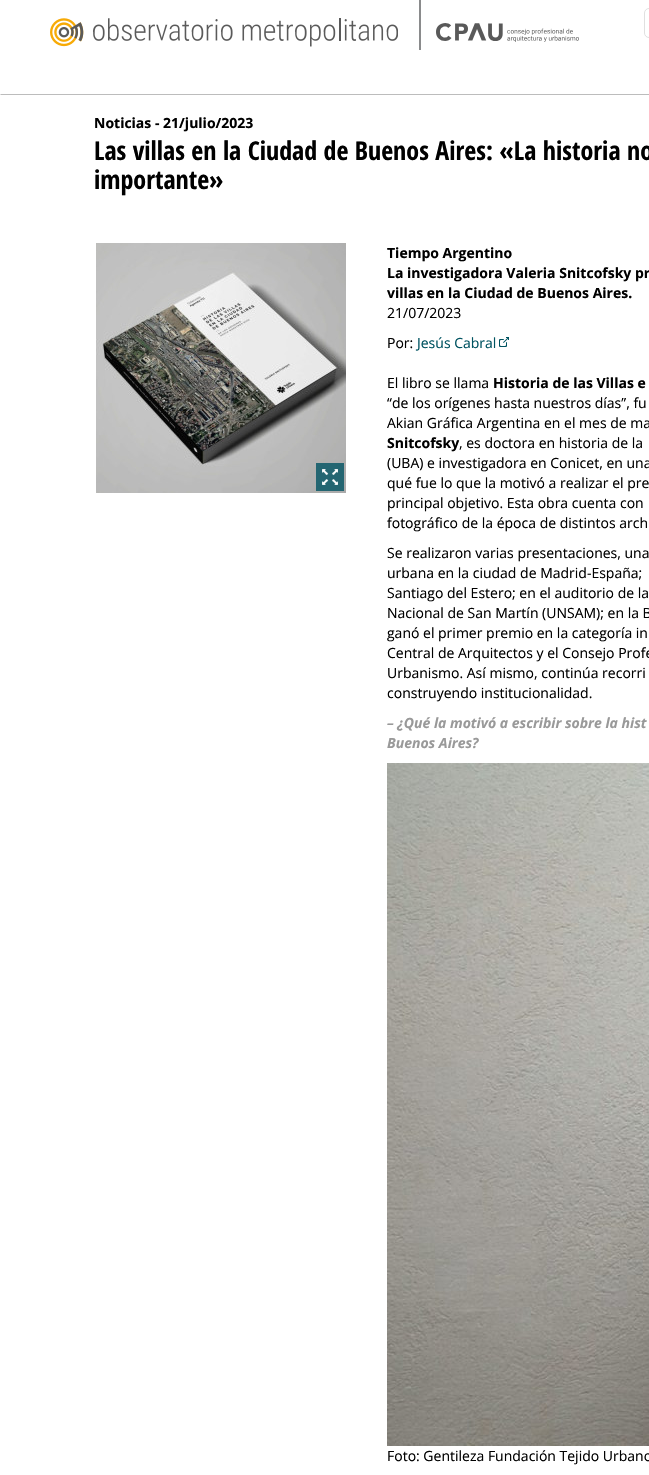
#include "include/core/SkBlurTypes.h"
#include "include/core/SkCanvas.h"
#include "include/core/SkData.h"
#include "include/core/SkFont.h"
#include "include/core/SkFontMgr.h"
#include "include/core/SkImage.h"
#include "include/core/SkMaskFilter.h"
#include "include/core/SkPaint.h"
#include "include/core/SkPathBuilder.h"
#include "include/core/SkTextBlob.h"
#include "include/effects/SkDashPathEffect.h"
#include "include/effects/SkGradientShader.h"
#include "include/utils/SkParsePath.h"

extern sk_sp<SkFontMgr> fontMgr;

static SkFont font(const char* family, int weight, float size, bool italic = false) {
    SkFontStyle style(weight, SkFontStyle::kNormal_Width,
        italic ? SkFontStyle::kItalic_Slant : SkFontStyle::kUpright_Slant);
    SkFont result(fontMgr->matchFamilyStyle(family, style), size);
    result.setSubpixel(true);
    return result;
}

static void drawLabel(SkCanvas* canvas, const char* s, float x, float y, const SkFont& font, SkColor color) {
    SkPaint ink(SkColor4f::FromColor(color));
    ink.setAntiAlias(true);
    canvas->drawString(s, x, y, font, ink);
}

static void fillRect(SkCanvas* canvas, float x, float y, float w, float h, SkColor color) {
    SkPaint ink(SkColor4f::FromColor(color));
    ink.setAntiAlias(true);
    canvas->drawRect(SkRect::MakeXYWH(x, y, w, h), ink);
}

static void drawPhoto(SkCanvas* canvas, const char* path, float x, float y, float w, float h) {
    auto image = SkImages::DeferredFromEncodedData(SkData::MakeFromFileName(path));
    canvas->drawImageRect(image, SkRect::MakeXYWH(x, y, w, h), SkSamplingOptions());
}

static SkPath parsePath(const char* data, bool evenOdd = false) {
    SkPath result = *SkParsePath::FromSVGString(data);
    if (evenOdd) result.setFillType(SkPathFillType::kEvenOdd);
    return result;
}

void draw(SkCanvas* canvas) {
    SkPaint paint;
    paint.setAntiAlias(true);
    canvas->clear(0xFFFFFFFF);
    drawPhoto(canvas, "assets/img1.png", 50, 18, 348, 29);
    fillRect(canvas, 419, 0, 2, 50, 0xFF8A8B8C);
    drawPhoto(canvas, "assets/img2.png", 436, 23, 143, 19);
    paint.setStroke(true);
    paint.setStrokeWidth(1);
    paint.setColor(0xFFE0E0E0);
    canvas->drawRoundRect(SkRect::MakeXYWH(644.5f, 8.5f, 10, 29), 4.5f, 4.5f, paint);
    paint.setStroke(false);
    paint.setColor(0xFFBCBCBC);
    canvas->drawPath(parsePath("M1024 95H0L1 94H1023Z"), paint);
    SkFont font1 = font("Open Sans", 700, 14);
    drawLabel(canvas, "Noticias - 21/julio/2023", 94, 128, font1, 0xFF000000);
    SkFont font2 = font("Open Sans Condensed", 700, 26);
    drawLabel(canvas, "Las villas en la Ciudad de Buenos Aires: «La historia no", 94, 160, font2, 0xFF000000);
    drawLabel(canvas, "importante»", 94, 189, font2, 0xFF000000);
    drawPhoto(canvas, "assets/img3.png", 96, 243, 250, 250);
    drawPhoto(canvas, "assets/img4.png", 316, 463, 28, 28);
    drawLabel(canvas, "Tiempo Argentino", 387, 258, font1, 0xFF000000);
    drawLabel(canvas, "La investigadora Valeria Snitcofsky pr", 387, 278, font1, 0xFF000000);
    drawLabel(canvas, "villas en la Ciudad de Buenos Aires.", 387, 298, font1, 0xFF000000);
    SkFont font3 = font("Open Sans", 400, 14);
    drawLabel(canvas, "21/07/2023", 387, 318, font3, 0xFF000000);
    drawLabel(canvas, "Por:", 387, 348, font3, 0xFF000000);
    drawLabel(canvas, "Jesús Cabral", 417, 348, font3, 0xFF005361);
    drawPhoto(canvas, "assets/img5.png", 499, 337, 10, 10);
    drawLabel(canvas, "El libro se llama", 387, 388, font3, 0xFF000000);
    drawLabel(canvas, "Historia de las Villas e", 493, 388, font1, 0xFF000000);
    drawLabel(canvas, "“de los orígenes hasta nuestros días”, fu", 387, 408, font3, 0xFF000000);
    drawLabel(canvas, "Akian Gráfica Argentina en el mes de ma", 387, 428, font3, 0xFF000000);
    drawLabel(canvas, "Snitcofsky", 387, 448, font1, 0xFF000000);
    drawLabel(canvas, ", es doctora en historia de la", 459, 448, font3, 0xFF000000);
    drawLabel(canvas, "(UBA) e investigadora en Conicet, en una", 387, 468, font3, 0xFF000000);
    drawLabel(canvas, "qué fue lo que la motivó a realizar el pre", 387, 488, font3, 0xFF000000);
    drawLabel(canvas, "principal objetivo. Esta obra cuenta con", 387, 508, font3, 0xFF000000);
    drawLabel(canvas, "fotográfico de la época de distintos arch", 387, 528, font3, 0xFF000000);
    drawLabel(canvas, "Se realizaron varias presentaciones, una", 387, 558, font3, 0xFF000000);
    drawLabel(canvas, "urbana en la ciudad de Madrid-España;", 387, 578, font3, 0xFF000000);
    drawLabel(canvas, "Santiago del Estero; en el auditorio de la", 387, 598, font3, 0xFF000000);
    drawLabel(canvas, "Nacional de San Martín (UNSAM); en la B", 387, 618, font3, 0xFF000000);
    drawLabel(canvas, "ganó el primer premio en la categoría in", 387, 638, font3, 0xFF000000);
    drawLabel(canvas, "Central de Arquitectos y el Consejo Profe", 387, 658, font3, 0xFF000000);
    drawLabel(canvas, "Urbanismo. Así mismo, continúa recorri", 387, 678, font3, 0xFF000000);
    drawLabel(canvas, "construyendo institucionalidad.", 387, 698, font3, 0xFF000000);
    SkFont font4 = font("Open Sans", 700, 14, true);
    drawLabel(canvas, "– ¿Qué la motivó a escribir sobre la hist", 387, 728, font4, 0xFF999999);
    drawLabel(canvas, "Buenos Aires?", 387, 748, font4, 0xFF999999);
    drawPhoto(canvas, "assets/img6.png", 387, 763, 262, 683);
    drawLabel(canvas, "Foto: Gentileza Fundación Tejido Urbano", 387, 1461, font3, 0xFF000000);
}
